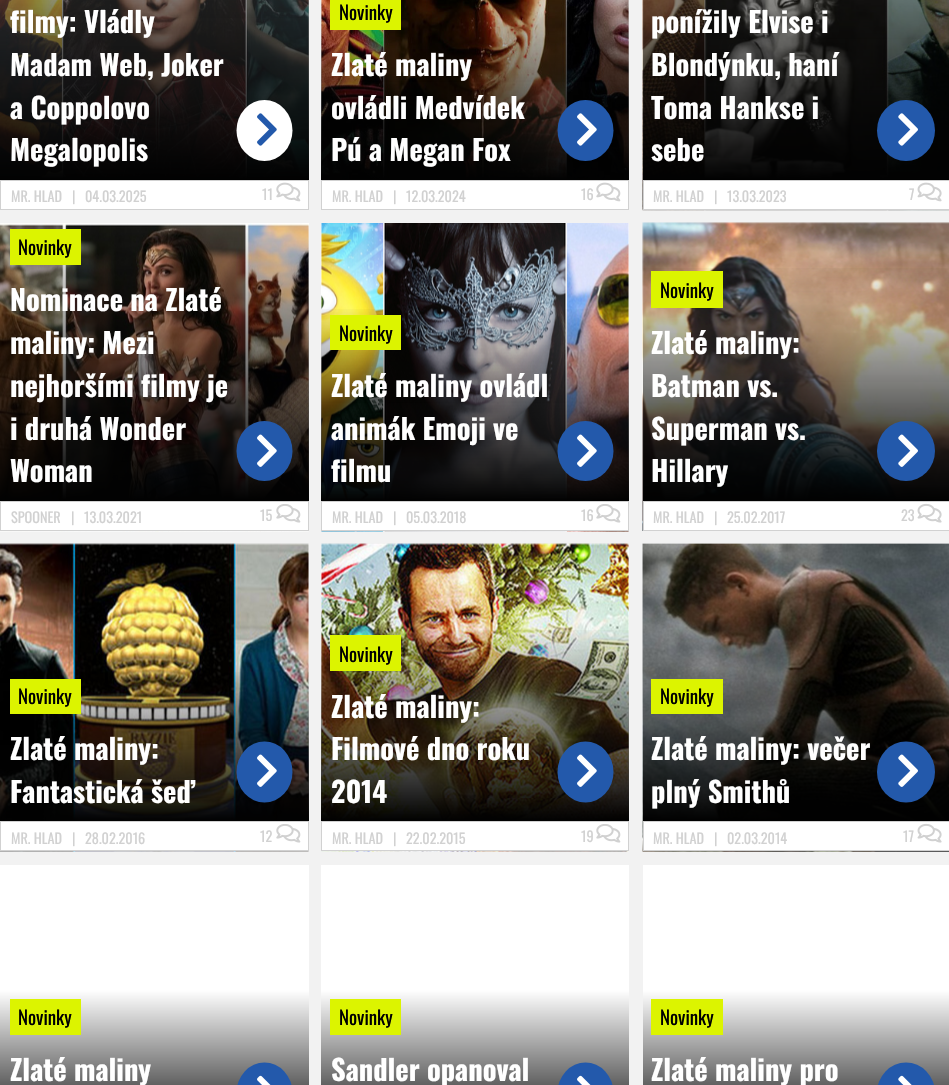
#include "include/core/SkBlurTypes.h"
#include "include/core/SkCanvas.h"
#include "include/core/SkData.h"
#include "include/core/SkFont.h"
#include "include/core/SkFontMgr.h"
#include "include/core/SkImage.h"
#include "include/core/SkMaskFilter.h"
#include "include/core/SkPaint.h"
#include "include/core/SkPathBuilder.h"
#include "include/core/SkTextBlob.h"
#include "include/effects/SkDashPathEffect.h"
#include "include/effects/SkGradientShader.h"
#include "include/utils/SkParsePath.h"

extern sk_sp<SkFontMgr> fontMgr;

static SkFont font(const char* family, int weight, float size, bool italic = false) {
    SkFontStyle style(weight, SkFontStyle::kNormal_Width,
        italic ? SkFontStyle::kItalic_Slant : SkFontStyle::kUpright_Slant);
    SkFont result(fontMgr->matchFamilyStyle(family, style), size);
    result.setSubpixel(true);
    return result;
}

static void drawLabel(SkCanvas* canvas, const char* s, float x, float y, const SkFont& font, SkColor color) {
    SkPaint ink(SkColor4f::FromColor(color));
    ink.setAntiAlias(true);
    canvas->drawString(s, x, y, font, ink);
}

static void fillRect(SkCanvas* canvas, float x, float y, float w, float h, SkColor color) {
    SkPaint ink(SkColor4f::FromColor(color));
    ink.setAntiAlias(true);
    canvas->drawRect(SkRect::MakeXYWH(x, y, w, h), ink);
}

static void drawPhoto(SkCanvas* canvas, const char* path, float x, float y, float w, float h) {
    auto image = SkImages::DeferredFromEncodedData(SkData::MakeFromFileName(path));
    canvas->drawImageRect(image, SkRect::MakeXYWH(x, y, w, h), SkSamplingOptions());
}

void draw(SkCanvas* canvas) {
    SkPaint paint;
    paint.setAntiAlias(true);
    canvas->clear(0xFFF2F2F2);
    fillRect(canvas, 0, 0, 309, 178, 0xFFFFFFFF);
    drawPhoto(canvas, "assets/img1.png", 0, 0, 309, 178);
    {
        const SkColor colors[] = {0x00010101, 0xFF010101};
        const float stops[] = {0, 1};
        const SkPoint ends[] = {{154, -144}, {154, 180}};
        paint.setShader(SkGradientShader::MakeLinear(ends, colors, stops, 2, SkTileMode::kClamp));
        paint.setAlpha(255);
    }
    canvas->drawRect(SkRect::MakeXYWH(0, 0, 309, 180), paint);
    SkFont font1 = font("Oswald", 700, 28.5f);
    drawLabel(canvas, "filmy: Vládly", 10, 33, font1, 0xFFFFFFFF);
    drawLabel(canvas, "Madam Web, Joker", 10, 76, font1, 0xFFFFFFFF);
    drawLabel(canvas, "a Coppolovo", 10, 119, font1, 0xFFFFFFFF);
    drawLabel(canvas, "Megalopolis", 10, 161, font1, 0xFFFFFFFF);
    paint.setShader(nullptr);
    paint.setColor(0xFFFFFFFF);
    canvas->drawOval(SkRect::MakeXYWH(236.5f, 100, 56, 61), paint);
    drawPhoto(canvas, "assets/img2.png", 257, 113, 20, 33);
    canvas->drawRect(SkRect::MakeXYWH(0.5f, 180.5f, 308, 29), paint);
    paint.setStroke(true);
    paint.setStrokeWidth(1);
    paint.setColor(0xFFD1D1D1);
    canvas->drawRect(SkRect::MakeXYWH(0.5f, 180.5f, 308, 29), paint);
    SkFont font2 = font("Oswald", 400, 14.25f);
    drawLabel(canvas, "MR. HLAD", 11, 202, font2, 0xFFD1D1D1);
    drawLabel(canvas, "|", 72, 202, font2, 0xFFD1D1D1);
    drawLabel(canvas, "04.03.2025", 85, 202, font2, 0xFFD1D1D1);
    drawLabel(canvas, "11", 262, 200, font2, 0xFFD1D1D1);
    drawPhoto(canvas, "assets/img3.png", 276, 182, 25, 20);
    fillRect(canvas, 321, 0, 308, 179, 0xFFFFFFFF);
    drawPhoto(canvas, "assets/img4.png", 321, 0, 308, 179);
    paint.setStroke(false);
    {
        const SkColor colors[] = {0x00010101, 0xFF010101};
        const float stops[] = {0, 1};
        const SkPoint ends[] = {{475, -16}, {475, 180}};
        paint.setShader(SkGradientShader::MakeLinear(ends, colors, stops, 2, SkTileMode::kClamp));
        paint.setAlpha(255);
    }
    canvas->drawRect(SkRect::MakeXYWH(321, 0, 308, 180), paint);
    fillRect(canvas, 330, 0, 71, 30, 0xFFDCF400);
    SkFont font3 = font("Oswald", 400, 19);
    drawLabel(canvas, "Novinky", 339, 20, font3, 0xFF000000);
    drawLabel(canvas, "Zlaté maliny", 331, 76, font1, 0xFFFFFFFF);
    drawLabel(canvas, "ovládli Medvídek", 331, 119, font1, 0xFFFFFFFF);
    drawLabel(canvas, "Pú a Megan Fox", 331, 161, font1, 0xFFFFFFFF);
    paint.setShader(nullptr);
    paint.setColor(0xFF2359AB);
    canvas->drawOval(SkRect::MakeXYWH(557.5f, 100, 56, 61), paint);
    drawPhoto(canvas, "assets/img5.png", 577, 113, 20, 33);
    paint.setColor(0xFFFFFFFF);
    canvas->drawRect(SkRect::MakeXYWH(321.5f, 180.5f, 307, 29), paint);
    paint.setStroke(true);
    paint.setColor(0xFFD1D1D1);
    canvas->drawRect(SkRect::MakeXYWH(321.5f, 180.5f, 307, 29), paint);
    drawLabel(canvas, "MR. HLAD", 332, 202, font2, 0xFFD1D1D1);
    drawLabel(canvas, "|", 393, 202, font2, 0xFFD1D1D1);
    drawLabel(canvas, "12.03.2024", 406, 202, font2, 0xFFD1D1D1);
    drawLabel(canvas, "16", 581, 200, font2, 0xFFD1D1D1);
    drawPhoto(canvas, "assets/img3.png", 596, 182, 25, 20);
    drawPhoto(canvas, "assets/img6.png", 642, 0, 307, 211);
    paint.setStroke(false);
    {
        const SkColor colors[] = {0x00010101, 0xFF010101};
        const float stops[] = {0, 1};
        const SkPoint ends[] = {{796, -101}, {796, 180}};
        paint.setShader(SkGradientShader::MakeLinear(ends, colors, stops, 2, SkTileMode::kClamp));
        paint.setAlpha(255);
    }
    canvas->drawRect(SkRect::MakeXYWH(643, 0, 306, 180), paint);
    drawLabel(canvas, "ponížily Elvise i", 651, 33, font1, 0xFFFFFFFF);
    drawLabel(canvas, "Blondýnku, haní", 651, 76, font1, 0xFFFFFFFF);
    drawLabel(canvas, "Toma Hankse i", 651, 119, font1, 0xFFFFFFFF);
    drawLabel(canvas, "sebe", 651, 161, font1, 0xFFFFFFFF);
    paint.setShader(nullptr);
    paint.setColor(0xFF2359AB);
    canvas->drawOval(SkRect::MakeXYWH(877, 100, 58, 61), paint);
    drawPhoto(canvas, "assets/img7.png", 898, 113, 20, 33);
    paint.setColor(0xFFFFFFFF);
    canvas->drawRect(SkRect::MakeXYWH(643.5f, 180.5f, 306, 29), paint);
    paint.setStroke(true);
    paint.setColor(0xFFD1D1D1);
    canvas->drawRect(SkRect::MakeXYWH(643.5f, 180.5f, 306, 29), paint);
    drawLabel(canvas, "MR. HLAD", 653, 202, font2, 0xFFD1D1D1);
    drawLabel(canvas, "|", 714, 202, font2, 0xFFD1D1D1);
    drawLabel(canvas, "13.03.2023", 727, 202, font2, 0xFFD1D1D1);
    drawLabel(canvas, "7", 909, 200, font2, 0xFFD1D1D1);
    drawPhoto(canvas, "assets/img8.png", 917, 182, 25, 20);
    fillRect(canvas, 308, 223, 1, 276, 0xFFFFFFFF);
    drawPhoto(canvas, "assets/img9.png", 0, 223, 309, 309);
    paint.setStroke(false);
    {
        const SkColor colors[] = {0x00010101, 0xFF010101};
        const float stops[] = {0, 1};
        const SkPoint ends[] = {{154, 220}, {154, 501}};
        paint.setShader(SkGradientShader::MakeLinear(ends, colors, stops, 2, SkTileMode::kClamp));
        paint.setAlpha(255);
    }
    canvas->drawRect(SkRect::MakeXYWH(0, 226, 309, 275), paint);
    fillRect(canvas, 10, 229, 71, 36, 0xFFDCF400);
    drawLabel(canvas, "Novinky", 18, 255, font3, 0xFF000000);
    drawLabel(canvas, "Nominace na Zlaté", 10, 311, font1, 0xFFFFFFFF);
    drawLabel(canvas, "maliny: Mezi", 10, 354, font1, 0xFFFFFFFF);
    drawLabel(canvas, "nejhoršími filmy je", 10, 397, font1, 0xFFFFFFFF);
    drawLabel(canvas, "i druhá Wonder", 10, 440, font1, 0xFFFFFFFF);
    drawLabel(canvas, "Woman", 10, 482, font1, 0xFFFFFFFF);
    paint.setShader(nullptr);
    paint.setColor(0xFF2359AB);
    canvas->drawOval(SkRect::MakeXYWH(236.5f, 421, 56, 60), paint);
    drawPhoto(canvas, "assets/img10.png", 257, 434, 20, 33);
    paint.setColor(0xFFFFFFFF);
    canvas->drawRect(SkRect::MakeXYWH(0.5f, 501.5f, 308, 29), paint);
    paint.setStroke(true);
    paint.setColor(0xFFD1D1D1);
    canvas->drawRect(SkRect::MakeXYWH(0.5f, 501.5f, 308, 29), paint);
    drawLabel(canvas, "SPOONER", 11, 523, font2, 0xFFD1D1D1);
    drawLabel(canvas, "|", 71, 523, font2, 0xFFD1D1D1);
    drawLabel(canvas, "13.03.2021", 84, 523, font2, 0xFFD1D1D1);
    drawLabel(canvas, "15", 260, 521, font2, 0xFFD1D1D1);
    drawPhoto(canvas, "assets/img11.png", 276, 504, 25, 19);
    fillRect(canvas, 321, 223, 308, 277, 0xFFFFFFFF);
    drawPhoto(canvas, "assets/img12.png", 321, 223, 308, 309);
    paint.setStroke(false);
    {
        const SkColor colors[] = {0x00010101, 0xFF010101};
        const float stops[] = {0, 1};
        const SkPoint ends[] = {{475, 305}, {475, 501}};
        paint.setShader(SkGradientShader::MakeLinear(ends, colors, stops, 2, SkTileMode::kClamp));
        paint.setAlpha(255);
    }
    canvas->drawRect(SkRect::MakeXYWH(321, 309, 308, 192), paint);
    fillRect(canvas, 330, 315, 71, 35, 0xFFDCF400);
    drawLabel(canvas, "Novinky", 339, 341, font3, 0xFF000000);
    drawLabel(canvas, "Zlaté maliny ovládl", 331, 397, font1, 0xFFFFFFFF);
    drawLabel(canvas, "animák Emoji ve", 331, 440, font1, 0xFFFFFFFF);
    drawLabel(canvas, "filmu", 331, 482, font1, 0xFFFFFFFF);
    paint.setShader(nullptr);
    paint.setColor(0xFF2359AB);
    canvas->drawOval(SkRect::MakeXYWH(557.5f, 421, 56, 60), paint);
    drawPhoto(canvas, "assets/img10.png", 577, 434, 20, 33);
    paint.setColor(0xFFFFFFFF);
    canvas->drawRect(SkRect::MakeXYWH(321.5f, 501.5f, 307, 29), paint);
    paint.setStroke(true);
    paint.setColor(0xFFD1D1D1);
    canvas->drawRect(SkRect::MakeXYWH(321.5f, 501.5f, 307, 29), paint);
    drawLabel(canvas, "MR. HLAD", 332, 523, font2, 0xFFD1D1D1);
    drawLabel(canvas, "|", 393, 523, font2, 0xFFD1D1D1);
    drawLabel(canvas, "05.03.2018", 406, 523, font2, 0xFFD1D1D1);
    drawLabel(canvas, "16", 581, 521, font2, 0xFFD1D1D1);
    drawPhoto(canvas, "assets/img11.png", 596, 504, 25, 19);
    drawPhoto(canvas, "assets/img13.png", 642, 222, 307, 309);
    paint.setStroke(false);
    {
        const SkColor colors[] = {0x00010101, 0xFF010101};
        const float stops[] = {0, 1};
        const SkPoint ends[] = {{796, 263}, {796, 501}};
        paint.setShader(SkGradientShader::MakeLinear(ends, colors, stops, 2, SkTileMode::kClamp));
        paint.setAlpha(255);
    }
    canvas->drawRect(SkRect::MakeXYWH(643, 268, 306, 233), paint);
    fillRect(canvas, 651, 271, 72, 37, 0xFFDCF400);
    drawLabel(canvas, "Novinky", 660, 298, font3, 0xFF000000);
    drawLabel(canvas, "Zlaté maliny:", 651, 354, font1, 0xFFFFFFFF);
    drawLabel(canvas, "Batman vs.", 651, 397, font1, 0xFFFFFFFF);
    drawLabel(canvas, "Superman vs.", 651, 440, font1, 0xFFFFFFFF);
    drawLabel(canvas, "Hillary", 651, 482, font1, 0xFFFFFFFF);
    paint.setShader(nullptr);
    paint.setColor(0xFF2359AB);
    canvas->drawOval(SkRect::MakeXYWH(877, 421, 58, 60), paint);
    drawPhoto(canvas, "assets/img14.png", 898, 434, 20, 33);
    paint.setColor(0xFFFFFFFF);
    canvas->drawRect(SkRect::MakeXYWH(643.5f, 501.5f, 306, 29), paint);
    paint.setStroke(true);
    paint.setColor(0xFFD1D1D1);
    canvas->drawRect(SkRect::MakeXYWH(643.5f, 501.5f, 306, 29), paint);
    drawLabel(canvas, "MR. HLAD", 653, 523, font2, 0xFFD1D1D1);
    drawLabel(canvas, "|", 714, 523, font2, 0xFFD1D1D1);
    drawLabel(canvas, "25.02.2017", 727, 523, font2, 0xFFD1D1D1);
    drawLabel(canvas, "23", 901, 521, font2, 0xFFD1D1D1);
    drawPhoto(canvas, "assets/img15.png", 917, 503, 25, 20);
    fillRect(canvas, 0, 544, 309, 276, 0xFFFFFFFF);
    drawPhoto(canvas, "assets/img16.png", 0, 543, 309, 309);
    paint.setStroke(false);
    {
        const SkColor colors[] = {0x00010101, 0xFF010101};
        const float stops[] = {0, 1};
        const SkPoint ends[] = {{154, 669}, {154, 821}};
        paint.setShader(SkGradientShader::MakeLinear(ends, colors, stops, 2, SkTileMode::kClamp));
        paint.setAlpha(255);
    }
    canvas->drawRect(SkRect::MakeXYWH(0, 672, 309, 149), paint);
    fillRect(canvas, 10, 679, 71, 35, 0xFFDCF400);
    drawLabel(canvas, "Novinky", 18, 704, font3, 0xFF000000);
    drawLabel(canvas, "Zlaté maliny:", 10, 760, font1, 0xFFFFFFFF);
    drawLabel(canvas, "Fantastická šeď", 10, 803, font1, 0xFFFFFFFF);
    paint.setShader(nullptr);
    paint.setColor(0xFF2359AB);
    canvas->drawOval(SkRect::MakeXYWH(236.5f, 741.5f, 56, 61), paint);
    drawPhoto(canvas, "assets/img10.png", 257, 754, 20, 33);
    paint.setColor(0xFFFFFFFF);
    canvas->drawRect(SkRect::MakeXYWH(0.5f, 821.5f, 308, 29), paint);
    paint.setStroke(true);
    paint.setColor(0xFFD1D1D1);
    canvas->drawRect(SkRect::MakeXYWH(0.5f, 821.5f, 308, 29), paint);
    drawLabel(canvas, "MR. HLAD", 11, 844, font2, 0xFFD1D1D1);
    drawLabel(canvas, "|", 72, 844, font2, 0xFFD1D1D1);
    drawLabel(canvas, "28.02.2016", 85, 844, font2, 0xFFD1D1D1);
    drawLabel(canvas, "12", 260, 842, font2, 0xFFD1D1D1);
    drawPhoto(canvas, "assets/img11.png", 276, 824, 25, 19);
    fillRect(canvas, 321, 544, 308, 276, 0xFFFFFFFF);
    drawPhoto(canvas, "assets/img17.png", 321, 543, 308, 309);
    paint.setStroke(false);
    {
        const SkColor colors[] = {0x00010101, 0xFF010101};
        const float stops[] = {0, 1};
        const SkPoint ends[] = {{475, 626}, {475, 821}};
        paint.setShader(SkGradientShader::MakeLinear(ends, colors, stops, 2, SkTileMode::kClamp));
        paint.setAlpha(255);
    }
    canvas->drawRect(SkRect::MakeXYWH(321, 630, 308, 191), paint);
    fillRect(canvas, 330, 635, 71, 36, 0xFFDCF400);
    drawLabel(canvas, "Novinky", 339, 662, font3, 0xFF000000);
    drawLabel(canvas, "Zlaté maliny:", 331, 718, font1, 0xFFFFFFFF);
    drawLabel(canvas, "Filmové dno roku", 331, 760, font1, 0xFFFFFFFF);
    drawLabel(canvas, "2014", 331, 803, font1, 0xFFFFFFFF);
    paint.setShader(nullptr);
    paint.setColor(0xFF2359AB);
    canvas->drawOval(SkRect::MakeXYWH(557.5f, 741.5f, 56, 61), paint);
    drawPhoto(canvas, "assets/img10.png", 577, 754, 20, 33);
    paint.setColor(0xFFFFFFFF);
    canvas->drawRect(SkRect::MakeXYWH(321.5f, 821.5f, 307, 29), paint);
    paint.setStroke(true);
    paint.setColor(0xFFD1D1D1);
    canvas->drawRect(SkRect::MakeXYWH(321.5f, 821.5f, 307, 29), paint);
    drawLabel(canvas, "MR. HLAD", 332, 844, font2, 0xFFD1D1D1);
    drawLabel(canvas, "|", 393, 844, font2, 0xFFD1D1D1);
    drawLabel(canvas, "22.02.2015", 406, 844, font2, 0xFFD1D1D1);
    drawLabel(canvas, "19", 581, 842, font2, 0xFFD1D1D1);
    drawPhoto(canvas, "assets/img11.png", 596, 824, 25, 19);
    drawPhoto(canvas, "assets/img18.png", 642, 543, 307, 309);
    fillRect(canvas, 651, 679, 72, 35, 0xFFDCF400);
    drawLabel(canvas, "Novinky", 660, 704, font3, 0xFF000000);
    drawLabel(canvas, "Zlaté maliny: večer", 651, 760, font1, 0xFFFFFFFF);
    drawLabel(canvas, "plný Smithů", 651, 803, font1, 0xFFFFFFFF);
    paint.setStroke(false);
    paint.setColor(0xFF2359AB);
    canvas->drawOval(SkRect::MakeXYWH(877, 741.5f, 58, 61), paint);
    drawPhoto(canvas, "assets/img14.png", 898, 754, 20, 33);
    paint.setColor(0xFFFFFFFF);
    canvas->drawRect(SkRect::MakeXYWH(643.5f, 821.5f, 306, 29), paint);
    paint.setStroke(true);
    paint.setColor(0xFFD1D1D1);
    canvas->drawRect(SkRect::MakeXYWH(643.5f, 821.5f, 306, 29), paint);
    drawLabel(canvas, "MR. HLAD", 653, 844, font2, 0xFFD1D1D1);
    drawLabel(canvas, "|", 714, 844, font2, 0xFFD1D1D1);
    drawLabel(canvas, "02.03.2014", 727, 844, font2, 0xFFD1D1D1);
    drawLabel(canvas, "17", 903, 842, font2, 0xFFD1D1D1);
    drawPhoto(canvas, "assets/img15.png", 917, 823, 25, 20);
    fillRect(canvas, 0, 865, 309, 125, 0xFFFFFFFF);
    paint.setStroke(false);
    {
        const SkColor colors[] = {0xFFFFFFFF, 0xFF010101};
        const float stops[] = {0, 1};
        const SkPoint ends[] = {{154, 990}, {154, 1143}};
        paint.setShader(SkGradientShader::MakeLinear(ends, colors, stops, 2, SkTileMode::kClamp));
        paint.setAlpha(255);
    }
    canvas->drawRect(SkRect::MakeXYWH(0, 990, 309, 95), paint);
    fillRect(canvas, 10, 999, 71, 36, 0xFFDCF400);
    drawLabel(canvas, "Novinky", 18, 1025, font3, 0xFF000000);
    drawLabel(canvas, "Zlaté maliny", 10, 1081, font1, 0xFFFFFFFF);
    paint.setShader(nullptr);
    paint.setColor(0xFF2359AB);
    canvas->drawOval(SkRect::MakeXYWH(236.5f, 1062.5f, 56, 61), paint);
    drawPhoto(canvas, "assets/img19.png", 257, 1075, 14, 10);
    fillRect(canvas, 321, 865, 308, 125, 0xFFFFFFFF);
    {
        const SkColor colors[] = {0xFFFFFFFF, 0xFF010101};
        const float stops[] = {0, 1};
        const SkPoint ends[] = {{475, 990}, {475, 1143}};
        paint.setShader(SkGradientShader::MakeLinear(ends, colors, stops, 2, SkTileMode::kClamp));
        paint.setAlpha(255);
    }
    canvas->drawRect(SkRect::MakeXYWH(321, 990, 308, 95), paint);
    fillRect(canvas, 330, 999, 71, 36, 0xFFDCF400);
    drawLabel(canvas, "Novinky", 339, 1025, font3, 0xFF000000);
    drawLabel(canvas, "Sandler opanoval", 331, 1081, font1, 0xFFFFFFFF);
    paint.setShader(nullptr);
    paint.setColor(0xFF2359AB);
    canvas->drawOval(SkRect::MakeXYWH(557.5f, 1062.5f, 56, 61), paint);
    drawPhoto(canvas, "assets/img19.png", 577, 1075, 14, 10);
    fillRect(canvas, 643, 865, 306, 125, 0xFFFFFFFF);
    {
        const SkColor colors[] = {0xFFFFFFFF, 0xFF010101};
        const float stops[] = {0, 1};
        const SkPoint ends[] = {{796, 990}, {796, 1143}};
        paint.setShader(SkGradientShader::MakeLinear(ends, colors, stops, 2, SkTileMode::kClamp));
        paint.setAlpha(255);
    }
    canvas->drawRect(SkRect::MakeXYWH(643, 990, 306, 95), paint);
    fillRect(canvas, 651, 999, 72, 36, 0xFFDCF400);
    drawLabel(canvas, "Novinky", 660, 1025, font3, 0xFF000000);
    drawLabel(canvas, "Zlaté maliny pro", 651, 1081, font1, 0xFFFFFFFF);
    paint.setShader(nullptr);
    paint.setColor(0xFF2359AB);
    canvas->drawOval(SkRect::MakeXYWH(877, 1062.5f, 58, 61), paint);
    drawPhoto(canvas, "assets/img20.png", 898, 1075, 14, 10);
}
